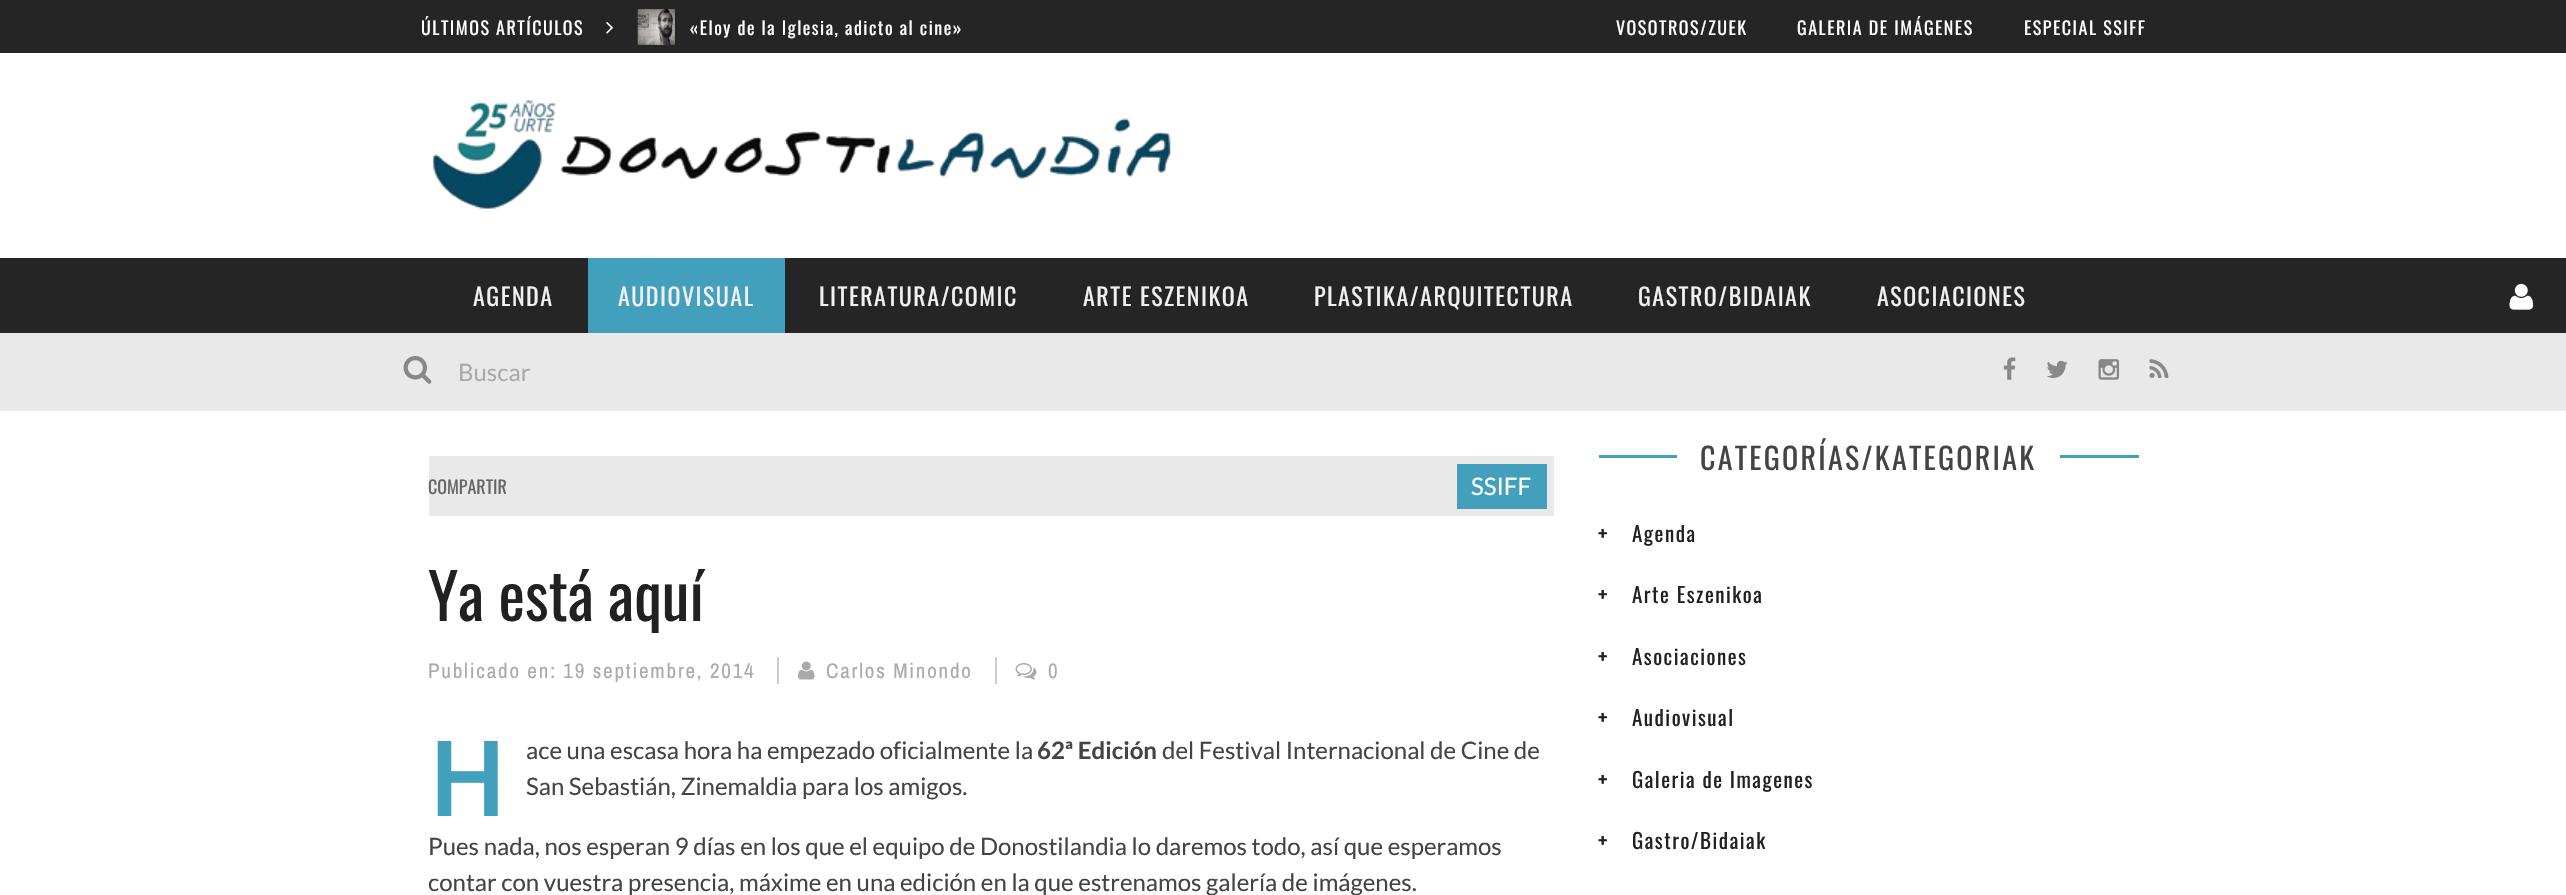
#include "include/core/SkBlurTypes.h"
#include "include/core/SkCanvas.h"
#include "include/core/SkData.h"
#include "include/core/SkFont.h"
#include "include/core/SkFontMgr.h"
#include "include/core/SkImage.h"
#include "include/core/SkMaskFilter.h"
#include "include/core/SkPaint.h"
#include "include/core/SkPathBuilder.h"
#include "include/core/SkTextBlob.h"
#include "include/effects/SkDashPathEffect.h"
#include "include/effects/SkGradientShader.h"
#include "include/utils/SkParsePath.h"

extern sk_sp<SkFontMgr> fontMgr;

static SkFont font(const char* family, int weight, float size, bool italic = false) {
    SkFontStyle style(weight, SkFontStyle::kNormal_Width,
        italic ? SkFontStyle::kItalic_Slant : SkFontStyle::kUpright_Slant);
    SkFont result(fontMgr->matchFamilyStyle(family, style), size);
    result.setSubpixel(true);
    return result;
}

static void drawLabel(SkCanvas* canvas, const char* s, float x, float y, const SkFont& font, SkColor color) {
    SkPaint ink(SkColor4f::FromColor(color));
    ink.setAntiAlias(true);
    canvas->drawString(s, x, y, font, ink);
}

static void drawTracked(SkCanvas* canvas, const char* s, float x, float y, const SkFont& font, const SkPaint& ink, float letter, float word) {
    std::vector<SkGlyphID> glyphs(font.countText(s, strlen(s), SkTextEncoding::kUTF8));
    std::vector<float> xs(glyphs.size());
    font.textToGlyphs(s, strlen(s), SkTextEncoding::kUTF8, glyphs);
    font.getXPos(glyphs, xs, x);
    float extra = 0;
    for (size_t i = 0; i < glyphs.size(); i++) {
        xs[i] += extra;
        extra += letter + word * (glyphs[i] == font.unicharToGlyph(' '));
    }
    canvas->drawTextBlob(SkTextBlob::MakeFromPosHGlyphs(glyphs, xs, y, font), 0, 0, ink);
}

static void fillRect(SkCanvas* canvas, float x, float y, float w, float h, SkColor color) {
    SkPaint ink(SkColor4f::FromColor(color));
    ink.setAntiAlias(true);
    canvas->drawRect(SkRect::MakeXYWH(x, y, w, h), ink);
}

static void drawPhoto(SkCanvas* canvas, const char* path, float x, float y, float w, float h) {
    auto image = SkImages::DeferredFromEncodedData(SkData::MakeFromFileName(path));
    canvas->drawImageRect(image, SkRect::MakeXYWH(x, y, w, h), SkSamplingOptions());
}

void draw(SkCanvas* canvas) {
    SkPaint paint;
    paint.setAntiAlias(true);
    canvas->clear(0xFFFFFFFF);
    fillRect(canvas, 0, 0, 2566, 53, 0xFF252525);
    SkFont font1 = font("Oswald", 400, 18);
    paint.setColor(0xFFFFFFFF);
    drawTracked(canvas, "ÚLTIMOS ARTÍCULOS", 421, 35, font1, paint, 1.5f, 0);
    drawPhoto(canvas, "assets/img1.png", 606, 22, 7, 12);
    drawPhoto(canvas, "assets/img2.png", 637, 9, 38, 36);
    drawTracked(canvas, "«Eloy de la Iglesia, adicto al cine»", 690, 35, font1, paint, 1.5f, 0);
    drawTracked(canvas, "VOSOTROS/ZUEK", 1616, 35, font1, paint, 1.5f, 0);
    drawTracked(canvas, "GALERIA DE IMÁGENES", 1797, 35, font1, paint, 1.5f, 0);
    drawTracked(canvas, "ESPECIAL SSIFF", 2024, 35, font1, paint, 1.5f, 0);
    drawPhoto(canvas, "assets/img3.png", 432, 100, 740, 110);
    fillRect(canvas, 0, 258, 2566, 75, 0xFF252525);
    SkFont font2 = font("Oswald", 400, 24);
    paint.setColor(0xFFF0F0F0);
    drawTracked(canvas, "AGENDA", 473, 306, font2, paint, 1.5f, 0);
    fillRect(canvas, 588, 258, 197, 75, 0xFF43A0BC);
    drawTracked(canvas, "AUDIOVISUAL", 618, 306, font2, paint, 1.5f, 0);
    drawTracked(canvas, "LITERATURA/COMIC", 819, 306, font2, paint, 1.5f, 0);
    drawTracked(canvas, "ARTE ESZENIKOA", 1083, 306, font2, paint, 1.5f, 0);
    drawTracked(canvas, "PLASTIKA/ARQUITECTURA", 1314, 306, font2, paint, 1.5f, 0);
    drawTracked(canvas, "GASTRO/BIDAIAK", 1638, 306, font2, paint, 1.5f, 0);
    drawTracked(canvas, "ASOCIACIONES", 1877, 306, font2, paint, 1.5f, 0);
    drawPhoto(canvas, "assets/img4.png", 2509, 283, 25, 27);
    fillRect(canvas, 0, 333, 2566, 78, 0xFFE9E9E9);
    drawPhoto(canvas, "assets/img5.png", 403, 355, 29, 29);
    SkFont font3 = font("Lato", 400, 24);
    drawLabel(canvas, "Buscar", 458, 381, font3, 0xFFAAAAAA);
    drawPhoto(canvas, "assets/img6.png", 2003, 357, 13, 23);
    drawPhoto(canvas, "assets/img7.png", 2046, 360, 22, 18);
    drawPhoto(canvas, "assets/img8.png", 2098, 359, 22, 21);
    drawPhoto(canvas, "assets/img9.png", 2149, 359, 20, 19);
    fillRect(canvas, 429, 456, 1125, 60, 0xFFE9E9E9);
    drawLabel(canvas, "COMPARTIR", 428, 494, font1, 0xFF666666);
    fillRect(canvas, 1457, 464, 90, 45, 0xFF43A0BC);
    drawLabel(canvas, "SSIFF", 1471, 495, font3, 0xFFFFFFFF);
    SkFont font4 = font("Oswald", 400, 63);
    drawLabel(canvas, "Ya está aquí", 428, 621, font4, 0xFF212121);
    SkFont font5 = font("Archivo Narrow", 400, 21);
    paint.setColor(0xFFAAAAAA);
    drawTracked(canvas, "Publicado en: 19 septiembre, 2014", 428, 678, font5, paint, 1.8f, 0);
    fillRect(canvas, 777, 657, 2, 27, 0xFFCCCCCC);
    drawPhoto(canvas, "assets/img10.png", 798, 661, 17, 19);
    drawTracked(canvas, "Carlos Minondo", 826, 678, font5, paint, 1.8f, 0);
    fillRect(canvas, 995, 657, 2, 27, 0xFFCCCCCC);
    drawPhoto(canvas, "assets/img11.png", 1015, 663, 22, 17);
    drawTracked(canvas, "0", 1048, 678, font5, paint, 1.8f, 0);
    SkFont font6 = font("Noto Sans", 600, 105);
    drawLabel(canvas, "H", 428, 816, font6, 0xFF43A0BC);
    drawLabel(canvas, "ace una escasa hora ha empezado oficialmente la", 526, 759, font3, 0xFF444444);
    SkFont font7 = font("Lato", 700, 24);
    drawLabel(canvas, "62ª Edición", 1037, 759, font7, 0xFF444444);
    drawLabel(canvas, "del Festival Internacional de Cine de", 1162, 759, font3, 0xFF444444);
    drawLabel(canvas, "San Sebastián, Zinemaldia para los amigos.", 526, 795, font3, 0xFF444444);
    drawLabel(canvas, "Pues nada, nos esperan 9 días en los que el equipo de Donostilandia lo daremos todo, así que esperamos", 428, 855, font3, 0xFF444444);
    drawLabel(canvas, "contar con vuestra presencia, máxime en una edición en la que estrenamos galería de imágenes.", 428, 891, font3, 0xFF444444);
    fillRect(canvas, 1599, 455, 540, 3, 0xFF43A0BC);
    fillRect(canvas, 1677, 455, 383, 3, 0xFFFFFFFF);
    SkFont font8 = font("Oswald", 400, 30);
    paint.setColor(0xFF444444);
    drawTracked(canvas, "CATEGORÍAS/KATEGORIAK", 1700, 470, font8, paint, 2.25f, 0);
    SkFont font9 = font("Oswald", 700, 21);
    paint.setColor(0xFF212121);
    drawTracked(canvas, "+", 1598, 542, font9, paint, 1.5f, 0);
    SkFont font10 = font("Oswald", 400, 21);
    drawTracked(canvas, "Agenda", 1632, 542, font10, paint, 1.5f, 0);
    drawTracked(canvas, "+", 1598, 603, font9, paint, 1.5f, 0);
    drawTracked(canvas, "Arte Eszenikoa", 1632, 603, font10, paint, 1.5f, 0);
    drawTracked(canvas, "+", 1598, 665, font9, paint, 1.5f, 0);
    drawTracked(canvas, "Asociaciones", 1632, 665, font10, paint, 1.5f, 0);
    drawTracked(canvas, "+", 1598, 726, font9, paint, 1.5f, 0);
    drawTracked(canvas, "Audiovisual", 1632, 726, font10, paint, 1.5f, 0);
    drawTracked(canvas, "+", 1598, 788, font9, paint, 1.5f, 0);
    drawTracked(canvas, "Galeria de Imagenes", 1632, 788, font10, paint, 1.5f, 0);
    drawTracked(canvas, "+", 1598, 849, font9, paint, 1.5f, 0);
    drawTracked(canvas, "Gastro/Bidaiak", 1632, 849, font10, paint, 1.5f, 0);
}
